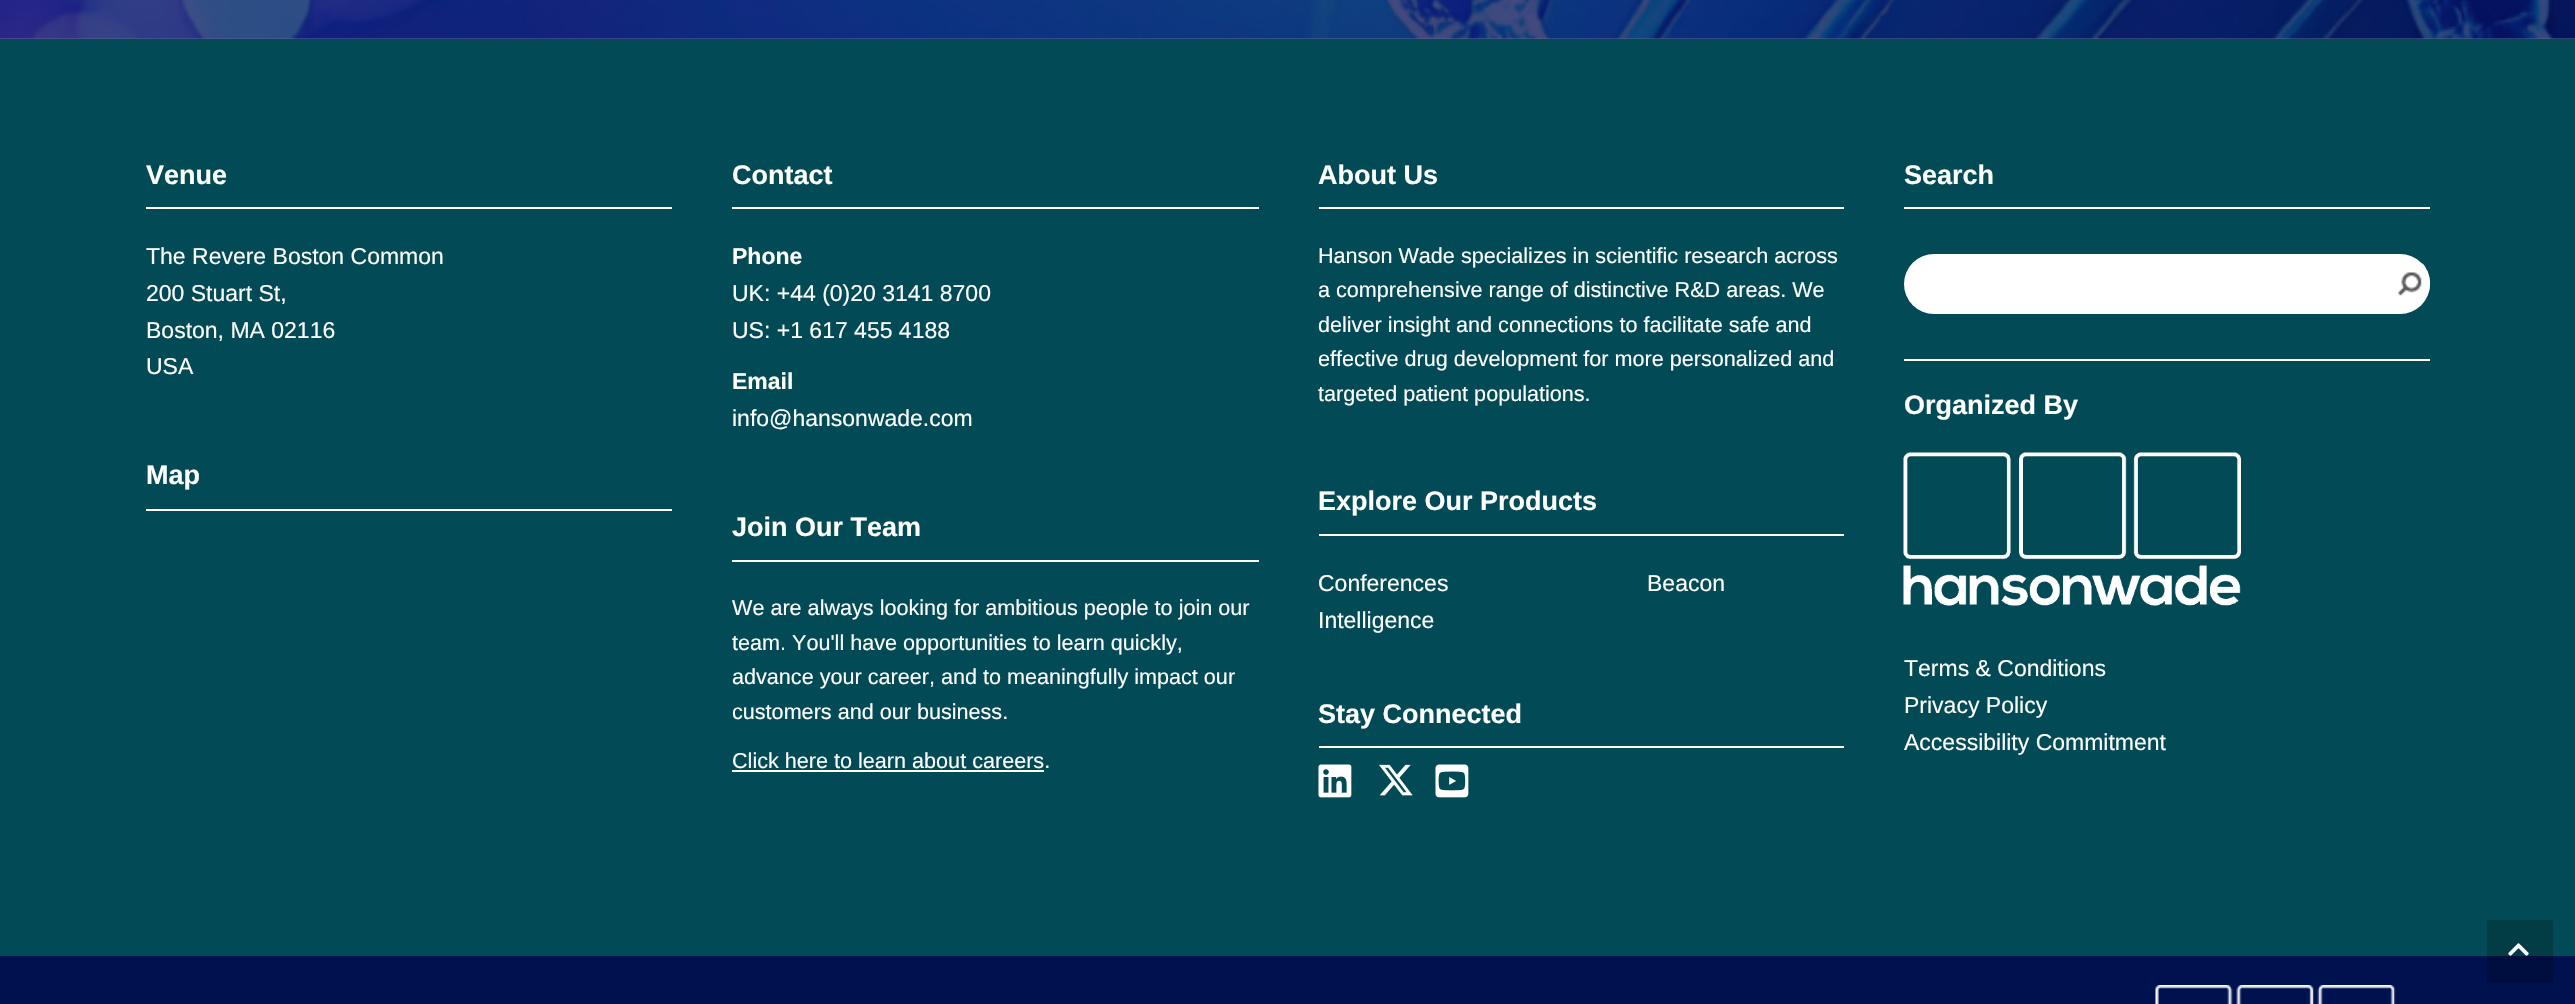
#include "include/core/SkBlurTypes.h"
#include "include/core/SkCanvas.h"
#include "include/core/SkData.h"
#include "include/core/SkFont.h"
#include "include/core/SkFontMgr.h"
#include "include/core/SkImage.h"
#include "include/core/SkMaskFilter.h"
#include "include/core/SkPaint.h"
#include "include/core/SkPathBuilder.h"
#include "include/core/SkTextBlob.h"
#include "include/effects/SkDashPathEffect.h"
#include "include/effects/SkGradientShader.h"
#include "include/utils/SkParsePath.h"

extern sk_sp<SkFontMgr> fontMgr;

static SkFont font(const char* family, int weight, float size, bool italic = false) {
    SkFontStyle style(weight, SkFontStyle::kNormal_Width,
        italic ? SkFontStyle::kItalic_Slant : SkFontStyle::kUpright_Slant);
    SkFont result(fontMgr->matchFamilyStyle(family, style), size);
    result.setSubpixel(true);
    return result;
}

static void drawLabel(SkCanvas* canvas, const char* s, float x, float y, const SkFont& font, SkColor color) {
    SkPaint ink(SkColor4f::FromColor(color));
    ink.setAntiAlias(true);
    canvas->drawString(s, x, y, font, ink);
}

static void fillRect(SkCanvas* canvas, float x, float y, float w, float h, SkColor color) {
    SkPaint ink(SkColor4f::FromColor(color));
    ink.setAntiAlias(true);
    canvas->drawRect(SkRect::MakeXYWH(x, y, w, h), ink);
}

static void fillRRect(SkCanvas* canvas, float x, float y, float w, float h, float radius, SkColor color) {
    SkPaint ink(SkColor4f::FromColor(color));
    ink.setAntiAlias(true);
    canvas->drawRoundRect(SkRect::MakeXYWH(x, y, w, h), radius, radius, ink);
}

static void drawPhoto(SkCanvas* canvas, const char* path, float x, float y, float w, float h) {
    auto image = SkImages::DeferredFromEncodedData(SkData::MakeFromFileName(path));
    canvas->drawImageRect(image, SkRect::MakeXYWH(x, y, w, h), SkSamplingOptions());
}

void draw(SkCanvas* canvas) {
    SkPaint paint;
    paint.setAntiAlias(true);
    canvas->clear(0xFF5C6495);
    drawPhoto(canvas, "assets/img1.png", 0, 0, 2575, 39);
    fillRect(canvas, 0, 39, 2575, 917, 0xFF024B56);
    fillRect(canvas, 2487, 920, 66, 36, 0xFF023C45);
    SkFont font1 = font("Liberation Sans", 700, 27);
    drawLabel(canvas, "Venue", 146, 184, font1, 0xFFFFFFFF);
    fillRect(canvas, 146, 207, 526, 2, 0xFFFFFFFF);
    SkFont font2 = font("Liberation Sans", 400, 23);
    drawLabel(canvas, "The Revere Boston Common", 146, 264, font2, 0xFFFFFFFF);
    drawLabel(canvas, "200 Stuart St,", 146, 301, font2, 0xFFFFFFFF);
    drawLabel(canvas, "Boston, MA 02116", 146, 338, font2, 0xFFFFFFFF);
    drawLabel(canvas, "USA", 146, 374, font2, 0xFFFFFFFF);
    drawLabel(canvas, "Map", 146, 484, font1, 0xFFFFFFFF);
    fillRect(canvas, 146, 509, 526, 2, 0xFFFFFFFF);
    drawLabel(canvas, "Contact", 732, 184, font1, 0xFFFFFFFF);
    fillRect(canvas, 732, 207, 527, 2, 0xFFFFFFFF);
    SkFont font3 = font("Liberation Sans", 700, 23);
    drawLabel(canvas, "Phone", 732, 264, font3, 0xFFFFFFFF);
    drawLabel(canvas, "UK: +44 (0)20 3141 8700", 732, 301, font2, 0xFFFFFFFF);
    drawLabel(canvas, "US: +1 617 455 4188", 732, 338, font2, 0xFFFFFFFF);
    drawLabel(canvas, "Email", 732, 389, font3, 0xFFFFFFFF);
    drawLabel(canvas, "info@hansonwade.com", 732, 426, font2, 0xFFFFFFFF);
    drawLabel(canvas, "Join Our Team", 732, 536, font1, 0xFFFFFFFF);
    fillRect(canvas, 732, 560, 527, 2, 0xFFFFFFFF);
    SkFont font4 = font("Liberation Sans", 400, 21.6f);
    drawLabel(canvas, "We are always looking for ambitious people to join our", 732, 615, font4, 0xFFFFFFFF);
    drawLabel(canvas, "team. You'll have opportunities to learn quickly,", 732, 650, font4, 0xFFFFFFFF);
    drawLabel(canvas, "advance your career, and to meaningfully impact our", 732, 684, font4, 0xFFFFFFFF);
    drawLabel(canvas, "customers and our business.", 732, 719, font4, 0xFFFFFFFF);
    drawLabel(canvas, "Click here to learn about careers.", 732, 768, font4, 0xFFFFFFFF);
    fillRect(canvas, 732, 770, 312, 2, 0xFFFFFFFF);
    drawLabel(canvas, "About Us", 1318, 184, font1, 0xFFFFFFFF);
    fillRect(canvas, 1319, 207, 525, 2, 0xFFFFFFFF);
    drawLabel(canvas, "Hanson Wade specializes in scientific research across", 1318, 263, font4, 0xFFFFFFFF);
    drawLabel(canvas, "a comprehensive range of distinctive R&D areas. We", 1318, 297, font4, 0xFFFFFFFF);
    drawLabel(canvas, "deliver insight and connections to facilitate safe and", 1318, 332, font4, 0xFFFFFFFF);
    drawLabel(canvas, "effective drug development for more personalized and", 1318, 366, font4, 0xFFFFFFFF);
    drawLabel(canvas, "targeted patient populations.", 1318, 401, font4, 0xFFFFFFFF);
    drawLabel(canvas, "Explore Our Products", 1318, 510, font1, 0xFFFFFFFF);
    fillRect(canvas, 1319, 534, 525, 2, 0xFFFFFFFF);
    drawLabel(canvas, "Conferences", 1318, 591, font2, 0xFFFFFFFF);
    drawLabel(canvas, "Beacon", 1647, 591, font2, 0xFFFFFFFF);
    drawLabel(canvas, "Intelligence", 1318, 628, font2, 0xFFFFFFFF);
    drawLabel(canvas, "Stay Connected", 1318, 723, font1, 0xFFFFFFFF);
    fillRect(canvas, 1319, 746, 525, 2, 0xFFFFFFFF);
    drawPhoto(canvas, "assets/img2.png", 1318, 764, 34, 34);
    drawPhoto(canvas, "assets/img3.png", 1379, 764, 34, 32);
    drawPhoto(canvas, "assets/img4.png", 1435, 764, 34, 34);
    drawLabel(canvas, "Search", 1904, 184, font1, 0xFFFFFFFF);
    fillRect(canvas, 1904, 207, 526, 2, 0xFFFFFFFF);
    fillRRect(canvas, 1904, 254, 526, 60, 30, 0xFFFFFFFF);
    drawPhoto(canvas, "assets/img5.png", 2398, 263, 32, 37);
    fillRect(canvas, 1904, 359, 526, 2, 0xFFFFFFFF);
    drawLabel(canvas, "Organized By", 1904, 414, font1, 0xFFFFFFFF);
    drawPhoto(canvas, "assets/img6.png", 1903, 452, 338, 154);
    drawLabel(canvas, "Terms & Conditions", 1904, 676, font2, 0xFFFFFFFF);
    drawLabel(canvas, "Privacy Policy", 1904, 713, font2, 0xFFFFFFFF);
    drawLabel(canvas, "Accessibility Commitment", 1904, 750, font2, 0xFFFFFFFF);
    fillRect(canvas, 0, 956, 2575, 48, 0xFF00114F);
    fillRect(canvas, 2487, 956, 66, 27, 0xFF000E3F);
    drawPhoto(canvas, "assets/img7.png", 2155, 985, 241, 19);
    drawPhoto(canvas, "assets/img8.png", 2508, 943, 21, 13);
}
